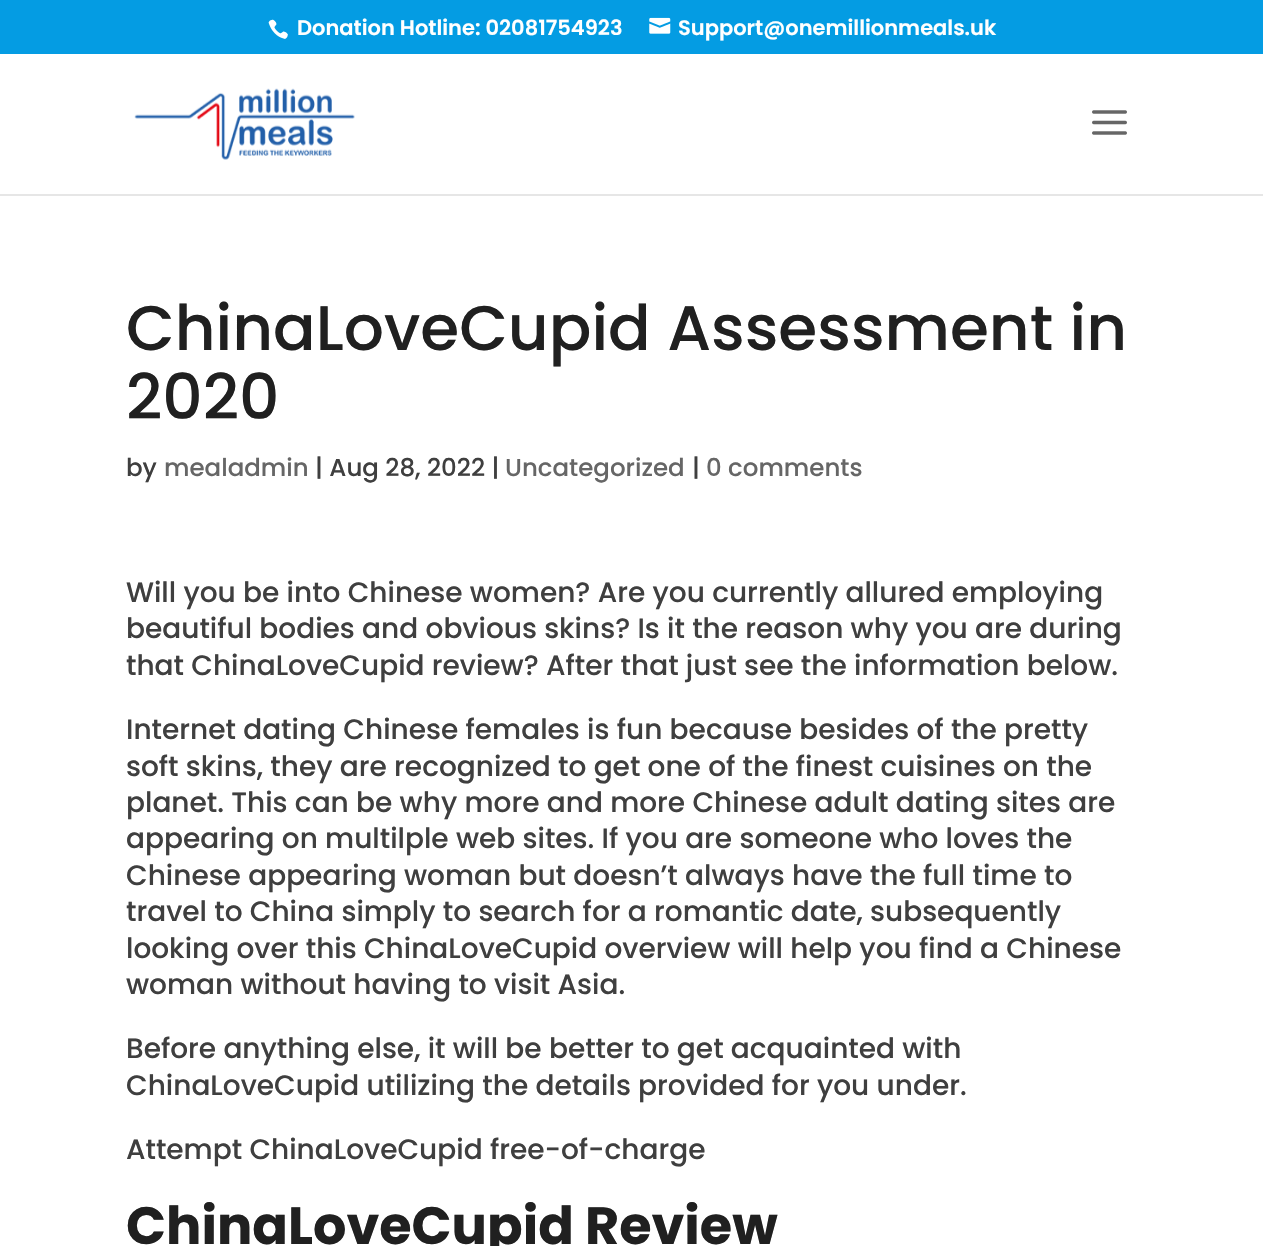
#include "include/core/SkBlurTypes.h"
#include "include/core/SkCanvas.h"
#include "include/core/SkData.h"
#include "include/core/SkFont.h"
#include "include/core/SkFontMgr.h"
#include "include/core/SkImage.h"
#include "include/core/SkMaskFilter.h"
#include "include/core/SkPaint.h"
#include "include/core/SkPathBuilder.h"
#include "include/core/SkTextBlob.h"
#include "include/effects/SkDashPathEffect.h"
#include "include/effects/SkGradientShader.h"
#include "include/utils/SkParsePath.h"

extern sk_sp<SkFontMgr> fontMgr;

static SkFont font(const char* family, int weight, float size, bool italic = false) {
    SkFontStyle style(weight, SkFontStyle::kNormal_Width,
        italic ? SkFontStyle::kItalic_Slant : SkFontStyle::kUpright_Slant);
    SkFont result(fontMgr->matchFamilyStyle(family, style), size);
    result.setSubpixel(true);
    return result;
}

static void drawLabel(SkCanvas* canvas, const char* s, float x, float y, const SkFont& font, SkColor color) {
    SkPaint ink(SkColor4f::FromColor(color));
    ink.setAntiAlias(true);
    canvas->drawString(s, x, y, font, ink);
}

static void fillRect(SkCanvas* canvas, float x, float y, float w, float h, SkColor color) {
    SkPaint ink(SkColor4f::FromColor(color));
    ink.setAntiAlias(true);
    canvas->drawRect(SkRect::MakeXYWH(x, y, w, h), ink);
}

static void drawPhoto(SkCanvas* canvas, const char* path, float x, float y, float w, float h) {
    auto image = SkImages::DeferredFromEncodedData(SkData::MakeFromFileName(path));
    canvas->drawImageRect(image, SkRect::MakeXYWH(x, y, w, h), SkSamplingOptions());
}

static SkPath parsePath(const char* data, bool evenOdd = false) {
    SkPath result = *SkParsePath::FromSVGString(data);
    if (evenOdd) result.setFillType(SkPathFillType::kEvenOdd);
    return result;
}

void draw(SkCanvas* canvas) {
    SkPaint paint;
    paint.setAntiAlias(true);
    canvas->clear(0xFFFFFFFF);
    fillRect(canvas, 0, 0, 1263, 54, 0xFF049CE3);
    drawPhoto(canvas, "assets/img1.png", 268, 19, 20, 20);
    SkFont font1 = font("Poppins", 600, 21);
    drawLabel(canvas, "Donation Hotline: 02081754923", 297, 35, font1, 0xFFFFFFFF);
    drawPhoto(canvas, "assets/img2.png", 649, 17, 22, 17);
    drawLabel(canvas, "Support@onemillionmeals.uk", 678, 35, font1, 0xFFFFFFFF);
    paint.setColor(0xFFE6E6E6);
    canvas->drawPath(parsePath("M0 194V196H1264V56V194Z"), paint);
    drawPhoto(canvas, "assets/img3.png", 134, 88, 221, 72);
    drawPhoto(canvas, "assets/img4.png", 1092, 110, 35, 25);
    SkFont font2 = font("Poppins", 500, 63);
    drawLabel(canvas, "ChinaLoveCupid Assessment in", 126, 350, font2, 0xFF202020);
    drawLabel(canvas, "2020", 126, 419, font2, 0xFF202020);
    SkFont font3 = font("Poppins", 500, 24.5f);
    drawLabel(canvas, "by", 126, 476, font3, 0xFF3F3F3F);
    drawLabel(canvas, "mealadmin", 164, 476, font3, 0xFF666666);
    drawLabel(canvas, "| Aug 28, 2022 |", 315, 476, font3, 0xFF3F3F3F);
    drawLabel(canvas, "Uncategorized", 505, 476, font3, 0xFF666666);
    drawLabel(canvas, "|", 692, 476, font3, 0xFF3F3F3F);
    drawLabel(canvas, "0 comments", 706, 476, font3, 0xFF666666);
    SkFont font4 = font("Poppins", 500, 28);
    drawLabel(canvas, "Will you be into Chinese women? Are you currently allured employing", 126, 602, font4, 0xFF3F3F3F);
    drawLabel(canvas, "beautiful bodies and obvious skins? Is it the reason why you are during", 126, 638, font4, 0xFF3F3F3F);
    drawLabel(canvas, "that ChinaLoveCupid review? After that just see the information below.", 126, 675, font4, 0xFF3F3F3F);
    drawLabel(canvas, "Internet dating Chinese females is fun because besides of the pretty", 126, 739, font4, 0xFF3F3F3F);
    drawLabel(canvas, "soft skins, they are recognized to get one of the finest cuisines on the", 126, 776, font4, 0xFF3F3F3F);
    drawLabel(canvas, "planet. This can be why more and more Chinese adult dating sites are", 126, 812, font4, 0xFF3F3F3F);
    drawLabel(canvas, "appearing on multilple web sites. If you are someone who loves the", 126, 848, font4, 0xFF3F3F3F);
    drawLabel(canvas, "Chinese appearing woman but doesn’t always have the full time to", 126, 885, font4, 0xFF3F3F3F);
    drawLabel(canvas, "travel to China simply to search for a romantic date, subsequently", 126, 921, font4, 0xFF3F3F3F);
    drawLabel(canvas, "looking over this ChinaLoveCupid overview will help you find a Chinese", 126, 958, font4, 0xFF3F3F3F);
    drawLabel(canvas, "woman without having to visit Asia.", 126, 994, font4, 0xFF3F3F3F);
    drawLabel(canvas, "Before anything else, it will be better to get acquainted with", 126, 1058, font4, 0xFF3F3F3F);
    drawLabel(canvas, "ChinaLoveCupid utilizing the details provided for you under.", 126, 1095, font4, 0xFF3F3F3F);
    drawLabel(canvas, "Attempt ChinaLoveCupid free-of-charge", 126, 1159, font4, 0xFF3F3F3F);
    SkFont font5 = font("Poppins", 700, 52.5f);
    drawLabel(canvas, "ChinaLoveCupid Review", 126, 1244, font5, 0xFF202020);
}
